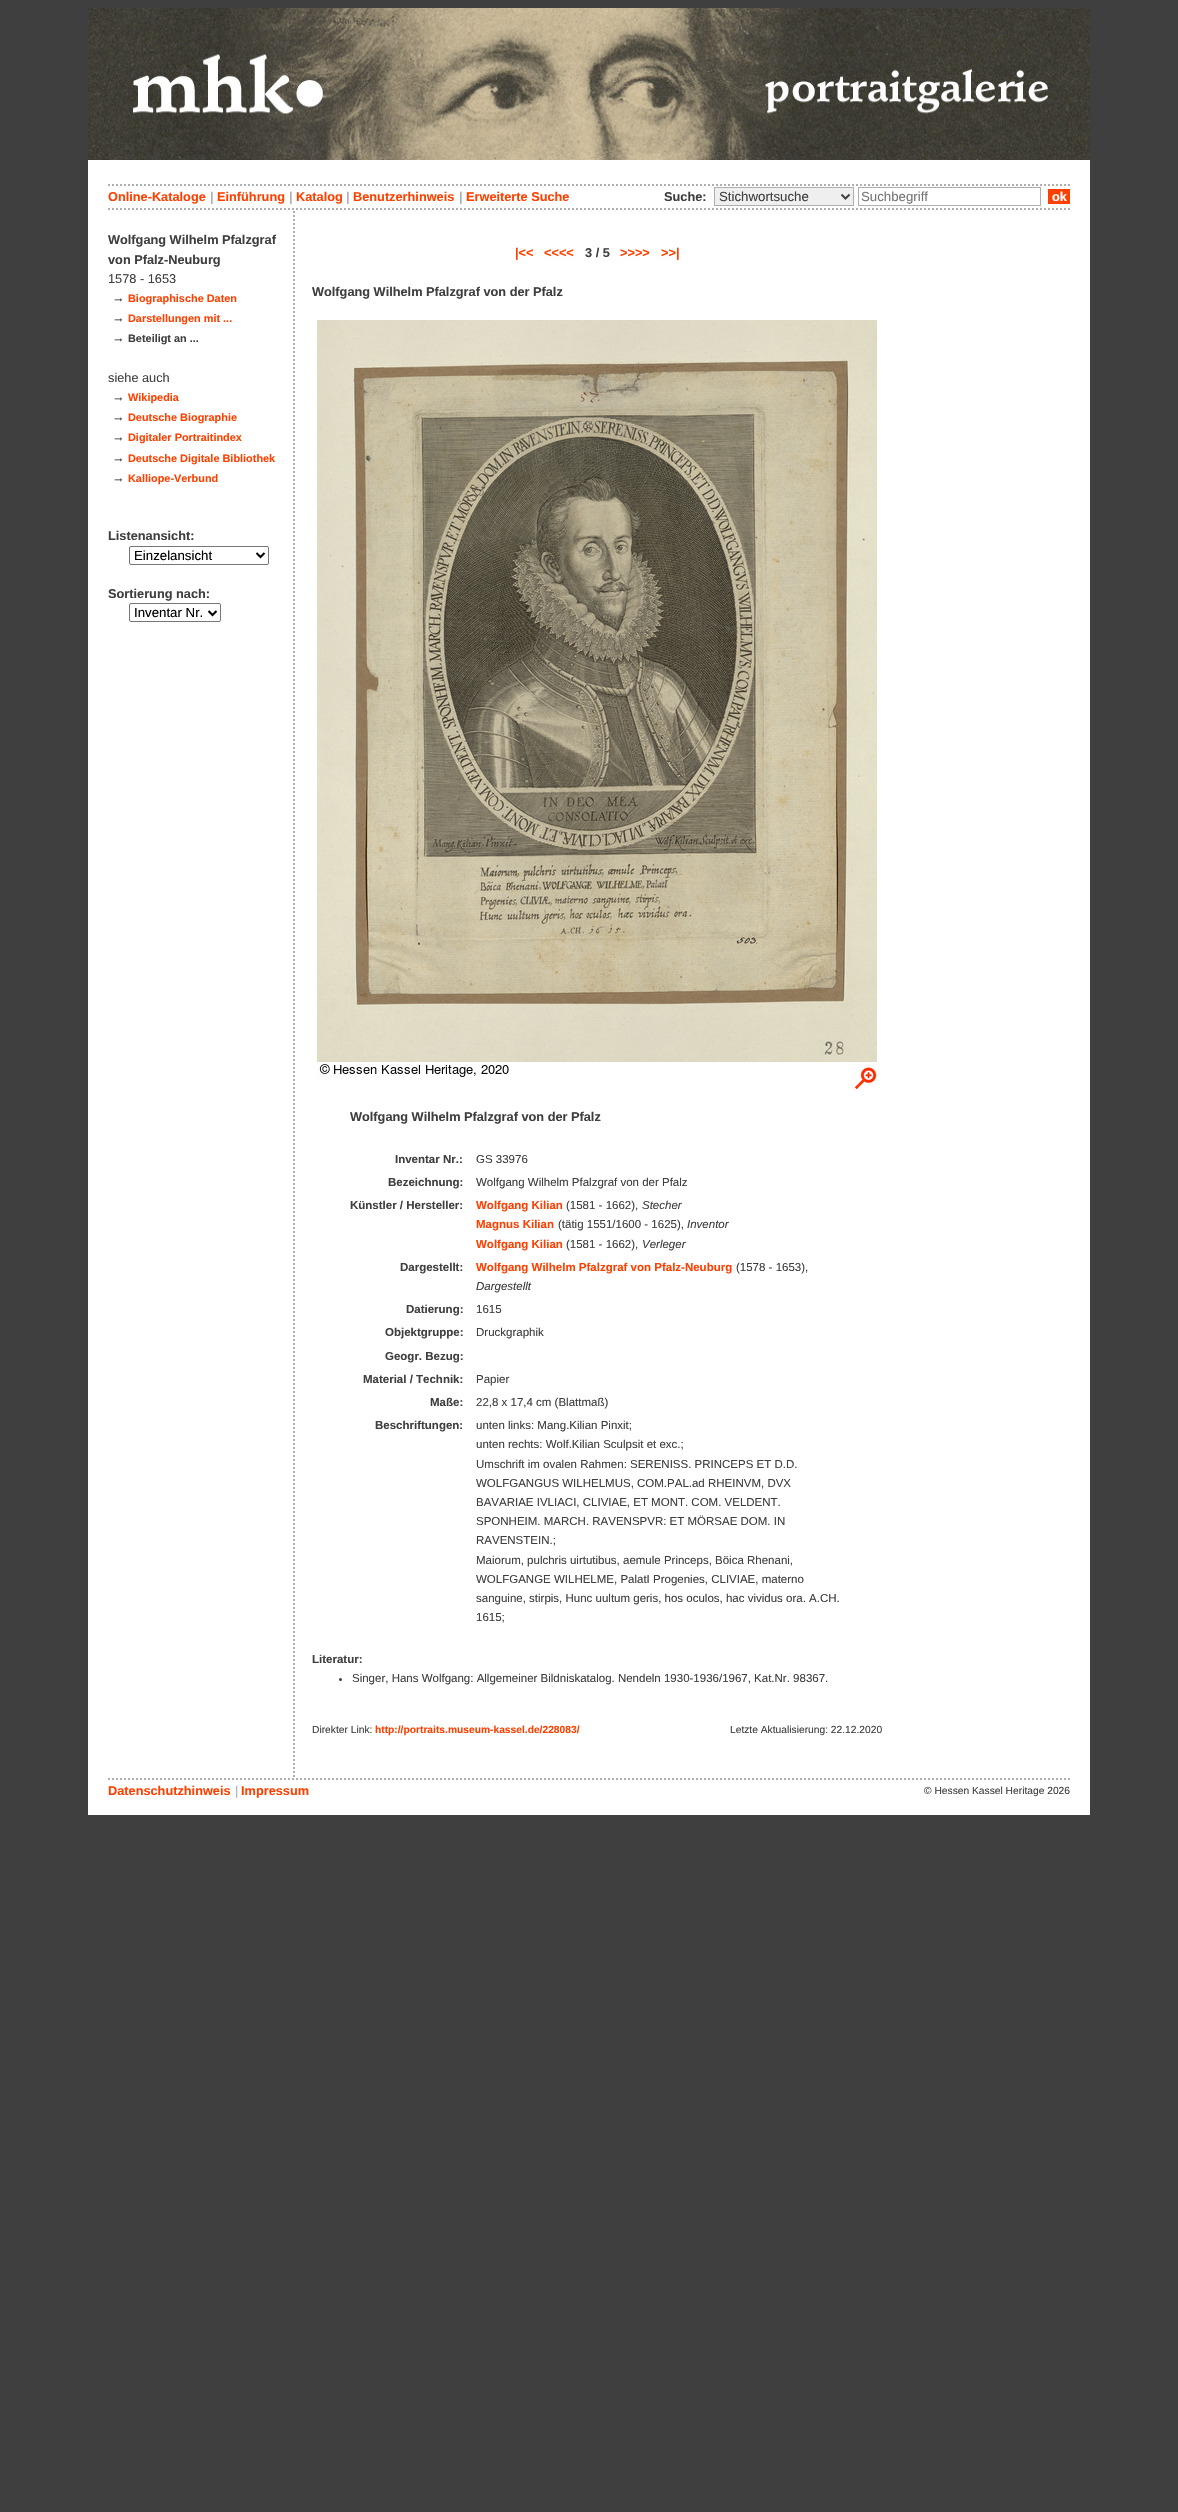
#include "include/core/SkBlurTypes.h"
#include "include/core/SkCanvas.h"
#include "include/core/SkData.h"
#include "include/core/SkFont.h"
#include "include/core/SkFontMgr.h"
#include "include/core/SkImage.h"
#include "include/core/SkMaskFilter.h"
#include "include/core/SkPaint.h"
#include "include/core/SkPathBuilder.h"
#include "include/core/SkTextBlob.h"
#include "include/effects/SkDashPathEffect.h"
#include "include/effects/SkGradientShader.h"
#include "include/utils/SkParsePath.h"

extern sk_sp<SkFontMgr> fontMgr;

static SkFont font(const char* family, int weight, float size, bool italic = false) {
    SkFontStyle style(weight, SkFontStyle::kNormal_Width,
        italic ? SkFontStyle::kItalic_Slant : SkFontStyle::kUpright_Slant);
    SkFont result(fontMgr->matchFamilyStyle(family, style), size);
    result.setSubpixel(true);
    return result;
}

static void drawLabel(SkCanvas* canvas, const char* s, float x, float y, const SkFont& font, SkColor color) {
    SkPaint ink(SkColor4f::FromColor(color));
    ink.setAntiAlias(true);
    canvas->drawString(s, x, y, font, ink);
}

static void fillRect(SkCanvas* canvas, float x, float y, float w, float h, SkColor color) {
    SkPaint ink(SkColor4f::FromColor(color));
    ink.setAntiAlias(true);
    canvas->drawRect(SkRect::MakeXYWH(x, y, w, h), ink);
}

static void drawPhoto(SkCanvas* canvas, const char* path, float x, float y, float w, float h) {
    auto image = SkImages::DeferredFromEncodedData(SkData::MakeFromFileName(path));
    canvas->drawImageRect(image, SkRect::MakeXYWH(x, y, w, h), SkSamplingOptions());
}

static SkPath parsePath(const char* data, bool evenOdd = false) {
    SkPath result = *SkParsePath::FromSVGString(data);
    if (evenOdd) result.setFillType(SkPathFillType::kEvenOdd);
    return result;
}

void draw(SkCanvas* canvas) {
    SkPaint paint;
    paint.setAntiAlias(true);
    canvas->clear(0xFF3F3F3F);
    fillRect(canvas, 88, 160, 1002, 1655, 0xFFFFFFFF);
    drawPhoto(canvas, "assets/img1.png", 88, 8, 1002, 152);
    paint.setStroke(true);
    paint.setStrokeWidth(2);
    paint.setColor(0xFFAFAFAF);
    paint.setPathEffect(SkDashPathEffect::Make({{2, 2}}, 0));
    canvas->drawPath(parsePath("M108 185H1070"), paint);
    paint.setPathEffect(nullptr);
    SkFont font1 = font("Liberation Sans", 700, 12.75f);
    drawLabel(canvas, "Online-Kataloge", 108, 201, font1, 0xFFFF4000);
    drawLabel(canvas, "|", 210, 201, font1, 0xFFAFAFAF);
    drawLabel(canvas, "Einführung", 217, 201, font1, 0xFFFF4000);
    drawLabel(canvas, "|", 289, 201, font1, 0xFFAFAFAF);
    drawLabel(canvas, "Katalog", 296, 201, font1, 0xFFFF4000);
    drawLabel(canvas, "|", 346, 201, font1, 0xFFAFAFAF);
    drawLabel(canvas, "Benutzerhinweis", 353, 201, font1, 0xFFFF4000);
    drawLabel(canvas, "|", 459, 201, font1, 0xFFAFAFAF);
    drawLabel(canvas, "Erweiterte Suche", 466, 201, font1, 0xFFFF4000);
    drawLabel(canvas, "Suche:", 664, 201, font1, 0xFF3F3F3F);
    paint.setStroke(false);
    paint.setColor(0xFFEFEFEF);
    canvas->drawRect(SkRect::MakeXYWH(714.5f, 187.5f, 139, 18), paint);
    paint.setStroke(true);
    paint.setStrokeWidth(1);
    paint.setColor(0xFFAFAFAF);
    canvas->drawRect(SkRect::MakeXYWH(714.5f, 187.5f, 139, 18), paint);
    paint.setStrokeWidth(2);
    paint.setColor(0xFF3F3F3F);
    canvas->drawPath(parsePath("M841.5 194.5L845.5 198.5L849.5 194.5"), paint);
    SkFont font2 = font("Liberation Sans", 400, 13.25f);
    drawLabel(canvas, "Stichwortsuche", 719, 201, font2, 0xFF3F3F3F);
    paint.setStrokeWidth(1);
    paint.setColor(0xFFAFAFAF);
    canvas->drawRect(SkRect::MakeXYWH(858.5f, 187.5f, 182, 18), paint);
    drawLabel(canvas, "Suchbegriff", 861, 201, font2, 0xFF757575);
    fillRect(canvas, 1048, 189, 22, 15, 0xFFFF4000);
    drawLabel(canvas, "ok", 1052, 201, font1, 0xFFFFFFFF);
    paint.setStrokeWidth(2);
    paint.setPathEffect(SkDashPathEffect::Make({{2, 2}}, 0));
    canvas->drawPath(parsePath("M108 209H1070"), paint);
    paint.setPathEffect(nullptr);
    drawLabel(canvas, "Wolfgang Wilhelm Pfalzgraf", 108, 244, font1, 0xFF3F3F3F);
    drawLabel(canvas, "von Pfalz-Neuburg", 108, 264, font1, 0xFF3F3F3F);
    SkFont font3 = font("Liberation Sans", 400, 12.75f);
    drawLabel(canvas, "1578 - 1653", 108, 283, font3, 0xFF3F3F3F);
    drawLabel(canvas, "→", 112, 302, font1, 0xFF3F3F3F);
    SkFont font4 = font("Liberation Sans", 700, 10.9f);
    drawLabel(canvas, "Biographische Daten", 128, 302, font4, 0xFFFF4000);
    drawLabel(canvas, "→", 112, 322, font1, 0xFF3F3F3F);
    drawLabel(canvas, "Darstellungen mit ...", 128, 322, font4, 0xFFFF4000);
    drawLabel(canvas, "→", 112, 342, font1, 0xFF3F3F3F);
    drawLabel(canvas, "Beteiligt an ...", 128, 342, font4, 0xFF3F3F3F);
    drawLabel(canvas, "siehe auch", 108, 382, font3, 0xFF3F3F3F);
    drawLabel(canvas, "→", 112, 401, font1, 0xFF3F3F3F);
    drawLabel(canvas, "Wikipedia", 128, 401, font4, 0xFFFF4000);
    drawLabel(canvas, "→", 112, 421, font1, 0xFF3F3F3F);
    drawLabel(canvas, "Deutsche Biographie", 128, 421, font4, 0xFFFF4000);
    drawLabel(canvas, "→", 112, 441, font1, 0xFF3F3F3F);
    drawLabel(canvas, "Digitaler Portraitindex", 128, 441, font4, 0xFFFF4000);
    drawLabel(canvas, "→", 112, 462, font1, 0xFF3F3F3F);
    drawLabel(canvas, "Deutsche Digitale Bibliothek", 128, 462, font4, 0xFFFF4000);
    drawLabel(canvas, "→", 112, 482, font1, 0xFF3F3F3F);
    drawLabel(canvas, "Kalliope-Verbund", 128, 482, font4, 0xFFFF4000);
    drawLabel(canvas, "Listenansicht:", 108, 540, font1, 0xFF3F3F3F);
    paint.setStrokeWidth(1);
    paint.setColor(0xFF767676);
    canvas->drawRoundRect(SkRect::MakeXYWH(129.5f, 546.5f, 139, 18), 1.5f, 1.5f, paint);
    paint.setStrokeWidth(2);
    paint.setColor(0xFF000000);
    canvas->drawPath(parsePath("M256.5 553L260.5 557L264.5 553"), paint);
    drawLabel(canvas, "Einzelansicht", 134, 560, font2, 0xFF000000);
    drawLabel(canvas, "Sortierung nach:", 108, 598, font1, 0xFF3F3F3F);
    paint.setStrokeWidth(1);
    paint.setColor(0xFF767676);
    canvas->drawRoundRect(SkRect::MakeXYWH(129.5f, 603.5f, 91, 18), 1.5f, 1.5f, paint);
    paint.setStrokeWidth(2);
    paint.setColor(0xFF000000);
    canvas->drawPath(parsePath("M208.5 611L212.5 615L216.5 611"), paint);
    drawLabel(canvas, "Inventar Nr.", 134, 617, font2, 0xFF000000);
    paint.setColor(0xFFAFAFAF);
    paint.setPathEffect(SkDashPathEffect::Make({{2, 2}}, 0));
    canvas->drawPath(parsePath("M294 211V1778"), paint);
    paint.setPathEffect(nullptr);
    drawLabel(canvas, "|<<", 515, 257, font1, 0xFFFF4000);
    drawLabel(canvas, "<<<<", 544, 257, font1, 0xFFFF4000);
    drawLabel(canvas, "3 / 5", 585, 257, font1, 0xFF3F3F3F);
    drawLabel(canvas, ">>>>", 620, 257, font1, 0xFFFF4000);
    drawLabel(canvas, ">>|", 661, 257, font1, 0xFFFF4000);
    drawLabel(canvas, "Wolfgang Wilhelm Pfalzgraf von der Pfalz", 312, 296, font1, 0xFF3F3F3F);
    drawPhoto(canvas, "assets/img2.png", 317, 320, 560, 760);
    drawPhoto(canvas, "assets/img3.png", 854, 1067, 23, 23);
    drawLabel(canvas, "Wolfgang Wilhelm Pfalzgraf von der Pfalz", 350, 1121, font1, 0xFF3F3F3F);
    SkFont font5 = font("Liberation Sans", 700, 11.5f);
    drawLabel(canvas, "Inventar Nr.:", 395, 1163, font5, 0xFF3F3F3F);
    SkFont font6 = font("Liberation Sans", 400, 11.5f);
    drawLabel(canvas, "GS 33976", 476, 1163, font6, 0xFF3F3F3F);
    drawLabel(canvas, "Bezeichnung:", 388, 1186, font5, 0xFF3F3F3F);
    drawLabel(canvas, "Wolfgang Wilhelm Pfalzgraf von der Pfalz", 476, 1186, font6, 0xFF3F3F3F);
    drawLabel(canvas, "Künstler / Hersteller:", 350, 1209, font5, 0xFF3F3F3F);
    drawLabel(canvas, "Wolfgang Kilian", 476, 1209, font5, 0xFFFF4000);
    drawLabel(canvas, "(1581 - 1662),", 566, 1209, font6, 0xFF3F3F3F);
    SkFont font7 = font("Liberation Sans", 400, 11.5f, true);
    drawLabel(canvas, "Stecher", 642, 1209, font7, 0xFF3F3F3F);
    drawLabel(canvas, "Magnus Kilian", 476, 1228, font5, 0xFFFF4000);
    drawLabel(canvas, "(tätig 1551/1600 - 1625),", 558, 1228, font6, 0xFF3F3F3F);
    drawLabel(canvas, "Inventor", 687, 1228, font7, 0xFF3F3F3F);
    drawLabel(canvas, "Wolfgang Kilian", 476, 1248, font5, 0xFFFF4000);
    drawLabel(canvas, "(1581 - 1662),", 566, 1248, font6, 0xFF3F3F3F);
    drawLabel(canvas, "Verleger", 642, 1248, font7, 0xFF3F3F3F);
    drawLabel(canvas, "Dargestellt:", 400, 1271, font5, 0xFF3F3F3F);
    drawLabel(canvas, "Wolfgang Wilhelm Pfalzgraf von Pfalz-Neuburg", 476, 1271, font5, 0xFFFF4000);
    drawLabel(canvas, "(1578 - 1653),", 736, 1271, font6, 0xFF3F3F3F);
    drawLabel(canvas, "Dargestellt", 476, 1290, font7, 0xFF3F3F3F);
    drawLabel(canvas, "Datierung:", 406, 1313, font5, 0xFF3F3F3F);
    drawLabel(canvas, "1615", 476, 1313, font6, 0xFF3F3F3F);
    drawLabel(canvas, "Objektgruppe:", 385, 1336, font5, 0xFF3F3F3F);
    drawLabel(canvas, "Druckgraphik", 476, 1336, font6, 0xFF3F3F3F);
    drawLabel(canvas, "Geogr. Bezug:", 385, 1360, font5, 0xFF3F3F3F);
    drawLabel(canvas, "Material / Technik:", 363, 1383, font5, 0xFF3F3F3F);
    drawLabel(canvas, "Papier", 476, 1383, font6, 0xFF3F3F3F);
    drawLabel(canvas, "Maße:", 430, 1406, font5, 0xFF3F3F3F);
    drawLabel(canvas, "22,8 x 17,4 cm (Blattmaß)", 476, 1406, font6, 0xFF3F3F3F);
    drawLabel(canvas, "Beschriftungen:", 375, 1429, font5, 0xFF3F3F3F);
    drawLabel(canvas, "unten links: Mang.Kilian Pinxit;", 476, 1429, font6, 0xFF3F3F3F);
    drawLabel(canvas, "unten rechts: Wolf.Kilian Sculpsit et exc.;", 476, 1448, font6, 0xFF3F3F3F);
    drawLabel(canvas, "Umschrift im ovalen Rahmen: SERENISS. PRINCEPS ET D.D.", 476, 1468, font6, 0xFF3F3F3F);
    drawLabel(canvas, "WOLFGANGUS WILHELMUS, COM.PAL.ad RHEINVM, DVX", 476, 1487, font6, 0xFF3F3F3F);
    drawLabel(canvas, "BAVARIAE IVLIACI, CLIVIAE, ET MONT. COM. VELDENT.", 476, 1506, font6, 0xFF3F3F3F);
    drawLabel(canvas, "SPONHEIM. MARCH. RAVENSPVR: ET MÖRSAE DOM. IN", 476, 1525, font6, 0xFF3F3F3F);
    drawLabel(canvas, "RAVENSTEIN.;", 476, 1544, font6, 0xFF3F3F3F);
    drawLabel(canvas, "Maiorum, pulchris uirtutibus, aemule Princeps, Böica Rhenani,", 476, 1564, font6, 0xFF3F3F3F);
    drawLabel(canvas, "WOLFGANGE WILHELME, PalatI Progenies, CLIVIAE, materno", 476, 1583, font6, 0xFF3F3F3F);
    drawLabel(canvas, "sanguine, stirpis, Hunc uultum geris, hos oculos, hac vividus ora. A.CH.", 476, 1602, font6, 0xFF3F3F3F);
    drawLabel(canvas, "1615;", 476, 1621, font6, 0xFF3F3F3F);
    drawLabel(canvas, "Literatur:", 312, 1663, font5, 0xFF3F3F3F);
    paint.setStroke(false);
    paint.setColor(0xFF3F3F3F);
    canvas->drawCircle(340.5f, 1679.5f, 1.5f, paint);
    drawLabel(canvas, "Singer, Hans Wolfgang: Allgemeiner Bildniskatalog. Nendeln 1930-1936/1967, Kat.Nr. 98367.", 352, 1682, font6, 0xFF3F3F3F);
    SkFont font8 = font("Liberation Sans", 400, 10.25f);
    drawLabel(canvas, "Direkter Link:", 312, 1733, font8, 0xFF3F3F3F);
    SkFont font9 = font("Liberation Sans", 700, 10.25f);
    drawLabel(canvas, "http://portraits.museum-kassel.de/228083/", 375, 1733, font9, 0xFFFF4000);
    drawLabel(canvas, "Letzte Aktualisierung: 22.12.2020", 730, 1733, font8, 0xFF3F3F3F);
    paint.setStroke(true);
    paint.setColor(0xFFAFAFAF);
    paint.setPathEffect(SkDashPathEffect::Make({{2, 2}}, 0));
    canvas->drawPath(parsePath("M108 1779H1070"), paint);
    paint.setPathEffect(nullptr);
    drawLabel(canvas, "Datenschutzhinweis", 108, 1795, font1, 0xFFFF4000);
    drawLabel(canvas, "|", 235, 1795, font3, 0xFFAFAFAF);
    drawLabel(canvas, "Impressum", 241, 1795, font1, 0xFFFF4000);
    drawLabel(canvas, "© Hessen Kassel Heritage 2026", 924, 1794, font8, 0xFF3F3F3F);
}
